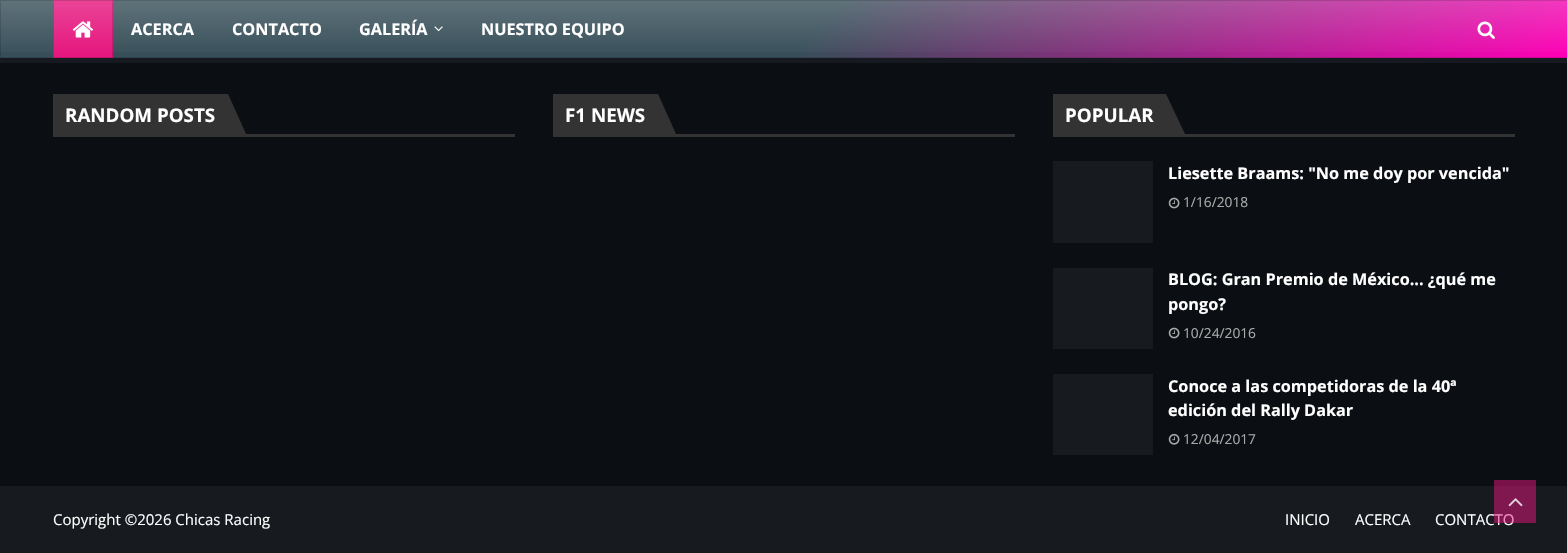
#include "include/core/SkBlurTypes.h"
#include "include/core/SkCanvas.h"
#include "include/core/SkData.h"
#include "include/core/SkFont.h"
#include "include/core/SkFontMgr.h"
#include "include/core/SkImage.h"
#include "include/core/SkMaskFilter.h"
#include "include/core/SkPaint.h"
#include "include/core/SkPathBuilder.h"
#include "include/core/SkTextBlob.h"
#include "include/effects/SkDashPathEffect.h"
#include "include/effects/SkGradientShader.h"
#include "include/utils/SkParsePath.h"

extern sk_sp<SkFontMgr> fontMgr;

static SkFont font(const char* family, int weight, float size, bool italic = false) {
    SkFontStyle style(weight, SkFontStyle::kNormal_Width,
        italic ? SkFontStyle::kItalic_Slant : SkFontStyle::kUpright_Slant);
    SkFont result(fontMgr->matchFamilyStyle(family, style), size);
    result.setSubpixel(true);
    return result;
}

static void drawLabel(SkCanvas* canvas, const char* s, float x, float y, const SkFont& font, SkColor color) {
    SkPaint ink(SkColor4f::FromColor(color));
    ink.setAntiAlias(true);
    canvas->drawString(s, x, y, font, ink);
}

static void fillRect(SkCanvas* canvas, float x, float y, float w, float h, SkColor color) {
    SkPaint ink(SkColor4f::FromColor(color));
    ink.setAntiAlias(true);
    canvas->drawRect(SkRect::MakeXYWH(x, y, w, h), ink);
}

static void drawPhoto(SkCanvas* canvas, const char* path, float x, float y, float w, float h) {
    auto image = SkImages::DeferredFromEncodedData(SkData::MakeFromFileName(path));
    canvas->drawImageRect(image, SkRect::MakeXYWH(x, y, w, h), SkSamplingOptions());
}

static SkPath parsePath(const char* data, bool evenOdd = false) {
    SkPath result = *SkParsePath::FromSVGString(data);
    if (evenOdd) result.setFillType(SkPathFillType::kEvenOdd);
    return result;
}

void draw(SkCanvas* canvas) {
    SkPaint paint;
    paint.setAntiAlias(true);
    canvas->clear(0xFF0B0E13);
    {
        const SkColor colors[] = {0xFF374F59, 0xFFFF00B6};
        const float stops[] = {0.52f, 1};
        const SkPoint ends[] = {{377, -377}, {1190, 435}};
        paint.setShader(SkGradientShader::MakeLinear(ends, colors, stops, 2, SkTileMode::kClamp));
        paint.setAlpha(255);
    }
    canvas->drawRect(SkRect::MakeXYWH(0, 0, 1567, 58), paint);
    {
        const SkColor colors[] = {0x33FFFFFF, 0x00FFFFFF};
        const float stops[] = {0, 1};
        const SkPoint ends[] = {{784, 0}, {784, 58}};
        paint.setShader(SkGradientShader::MakeLinear(ends, colors, stops, 2, SkTileMode::kClamp));
        paint.setAlpha(255);
    }
    canvas->drawRect(SkRect::MakeXYWH(0, 0, 1567, 52), paint);
    paint.setStroke(true);
    paint.setStrokeWidth(1);
    paint.setShader(nullptr);
    paint.setColor(0x26000000);
    canvas->drawRect(SkRect::MakeXYWH(0.5f, 0.5f, 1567, 57), paint);
    paint.setStroke(false);
    {
        const SkColor colors[] = {0xFFEA4497, 0xFFE5157D};
        const float stops[] = {0, 1};
        const SkPoint ends[] = {{83, 0}, {83, 58}};
        paint.setShader(SkGradientShader::MakeLinear(ends, colors, stops, 2, SkTileMode::kClamp));
        paint.setAlpha(255);
    }
    canvas->drawRect(SkRect::MakeXYWH(53, 0, 60, 58), paint);
    paint.setStroke(true);
    paint.setShader(nullptr);
    paint.setColor(0x26000000);
    canvas->drawRect(SkRect::MakeXYWH(53.5f, 0.5f, 59, 57), paint);
    drawPhoto(canvas, "assets/img1.png", 72, 21, 21, 17);
    SkFont font1 = font("Open Sans", 700, 16.25f);
    drawLabel(canvas, "ACERCA", 131, 35, font1, 0xFFFFFFFF);
    drawLabel(canvas, "CONTACTO", 232, 35, font1, 0xFFFFFFFF);
    drawLabel(canvas, "GALERÍA", 359, 35, font1, 0xFFFFFFFF);
    drawPhoto(canvas, "assets/img2.png", 434, 26, 9, 6);
    drawLabel(canvas, "NUESTRO EQUIPO", 481, 35, font1, 0xFFFFFFFF);
    drawPhoto(canvas, "assets/img3.png", 1477, 21, 18, 18);
    fillRect(canvas, 0, 58, 1567, 5, 0xFF171921);
    fillRect(canvas, 53, 134, 462, 3, 0xFF333333);
    fillRect(canvas, 53, 94, 175, 40, 0xFF333333);
    SkFont font2 = font("Open Sans", 700, 18.75f);
    drawLabel(canvas, "RANDOM POSTS", 65, 122, font2, 0xFFFFFFFF);
    paint.setStroke(false);
    paint.setColor(0xFF333333);
    canvas->drawPath(parsePath("M228 134V94L246 134Z"), paint);
    fillRect(canvas, 553, 134, 462, 3, 0xFF333333);
    fillRect(canvas, 553, 94, 105, 40, 0xFF333333);
    drawLabel(canvas, "F1 NEWS", 565, 122, font2, 0xFFFFFFFF);
    canvas->drawPath(parsePath("M658 134V94L676 134Z"), paint);
    fillRect(canvas, 1053, 134, 462, 3, 0xFF333333);
    fillRect(canvas, 1053, 94, 113, 40, 0xFF333333);
    drawLabel(canvas, "POPULAR", 1065, 122, font2, 0xFFFFFFFF);
    canvas->drawPath(parsePath("M1166 134V94L1185 134Z"), paint);
    fillRect(canvas, 1053, 161, 100, 82, 0xFF171A1F);
    drawLabel(canvas, "Liesette Braams: \"No me doy por vencida\"", 1168, 179, font1, 0xFFFFFFFF);
    drawPhoto(canvas, "assets/img4.png", 1168, 197, 12, 12);
    SkFont font3 = font("Open Sans", 400, 13.75f);
    drawLabel(canvas, "1/16/2018", 1183, 207, font3, 0xFFAAAAAA);
    fillRect(canvas, 1053, 268, 100, 81, 0xFF171A1F);
    drawLabel(canvas, "BLOG: Gran Premio de México... ¿qué me", 1168, 285, font1, 0xFFFFFFFF);
    drawLabel(canvas, "pongo?", 1168, 310, font1, 0xFFFFFFFF);
    drawPhoto(canvas, "assets/img4.png", 1168, 327, 12, 12);
    drawLabel(canvas, "10/24/2016", 1183, 338, font3, 0xFFAAAAAA);
    fillRect(canvas, 1053, 374, 100, 81, 0xFF171A1F);
    drawLabel(canvas, "Conoce a las competidoras de la 40ª", 1168, 392, font1, 0xFFFFFFFF);
    drawLabel(canvas, "edición del Rally Dakar", 1168, 416, font1, 0xFFFFFFFF);
    drawPhoto(canvas, "assets/img5.png", 1168, 433, 12, 12);
    drawLabel(canvas, "12/04/2017", 1183, 444, font3, 0xFFAAAAAA);
    fillRect(canvas, 0, 486, 1567, 67, 0xFF171A1F);
    SkFont font4 = font("Open Sans", 400, 15);
    drawLabel(canvas, "Copyright ©2026 Chicas Racing", 53, 525, font4, 0xFFFFFFFF);
    drawLabel(canvas, "INICIO", 1285, 525, font4, 0xFFFFFFFF);
    drawLabel(canvas, "ACERCA", 1355, 525, font4, 0xFFFFFFFF);
    drawLabel(canvas, "CONTACTO", 1435, 525, font4, 0xFFFFFFFF);
    fillRect(canvas, 1494, 480, 42, 43, 0x80E5157D);
    drawPhoto(canvas, "assets/img6.png", 1508, 498, 15, 9);
}
